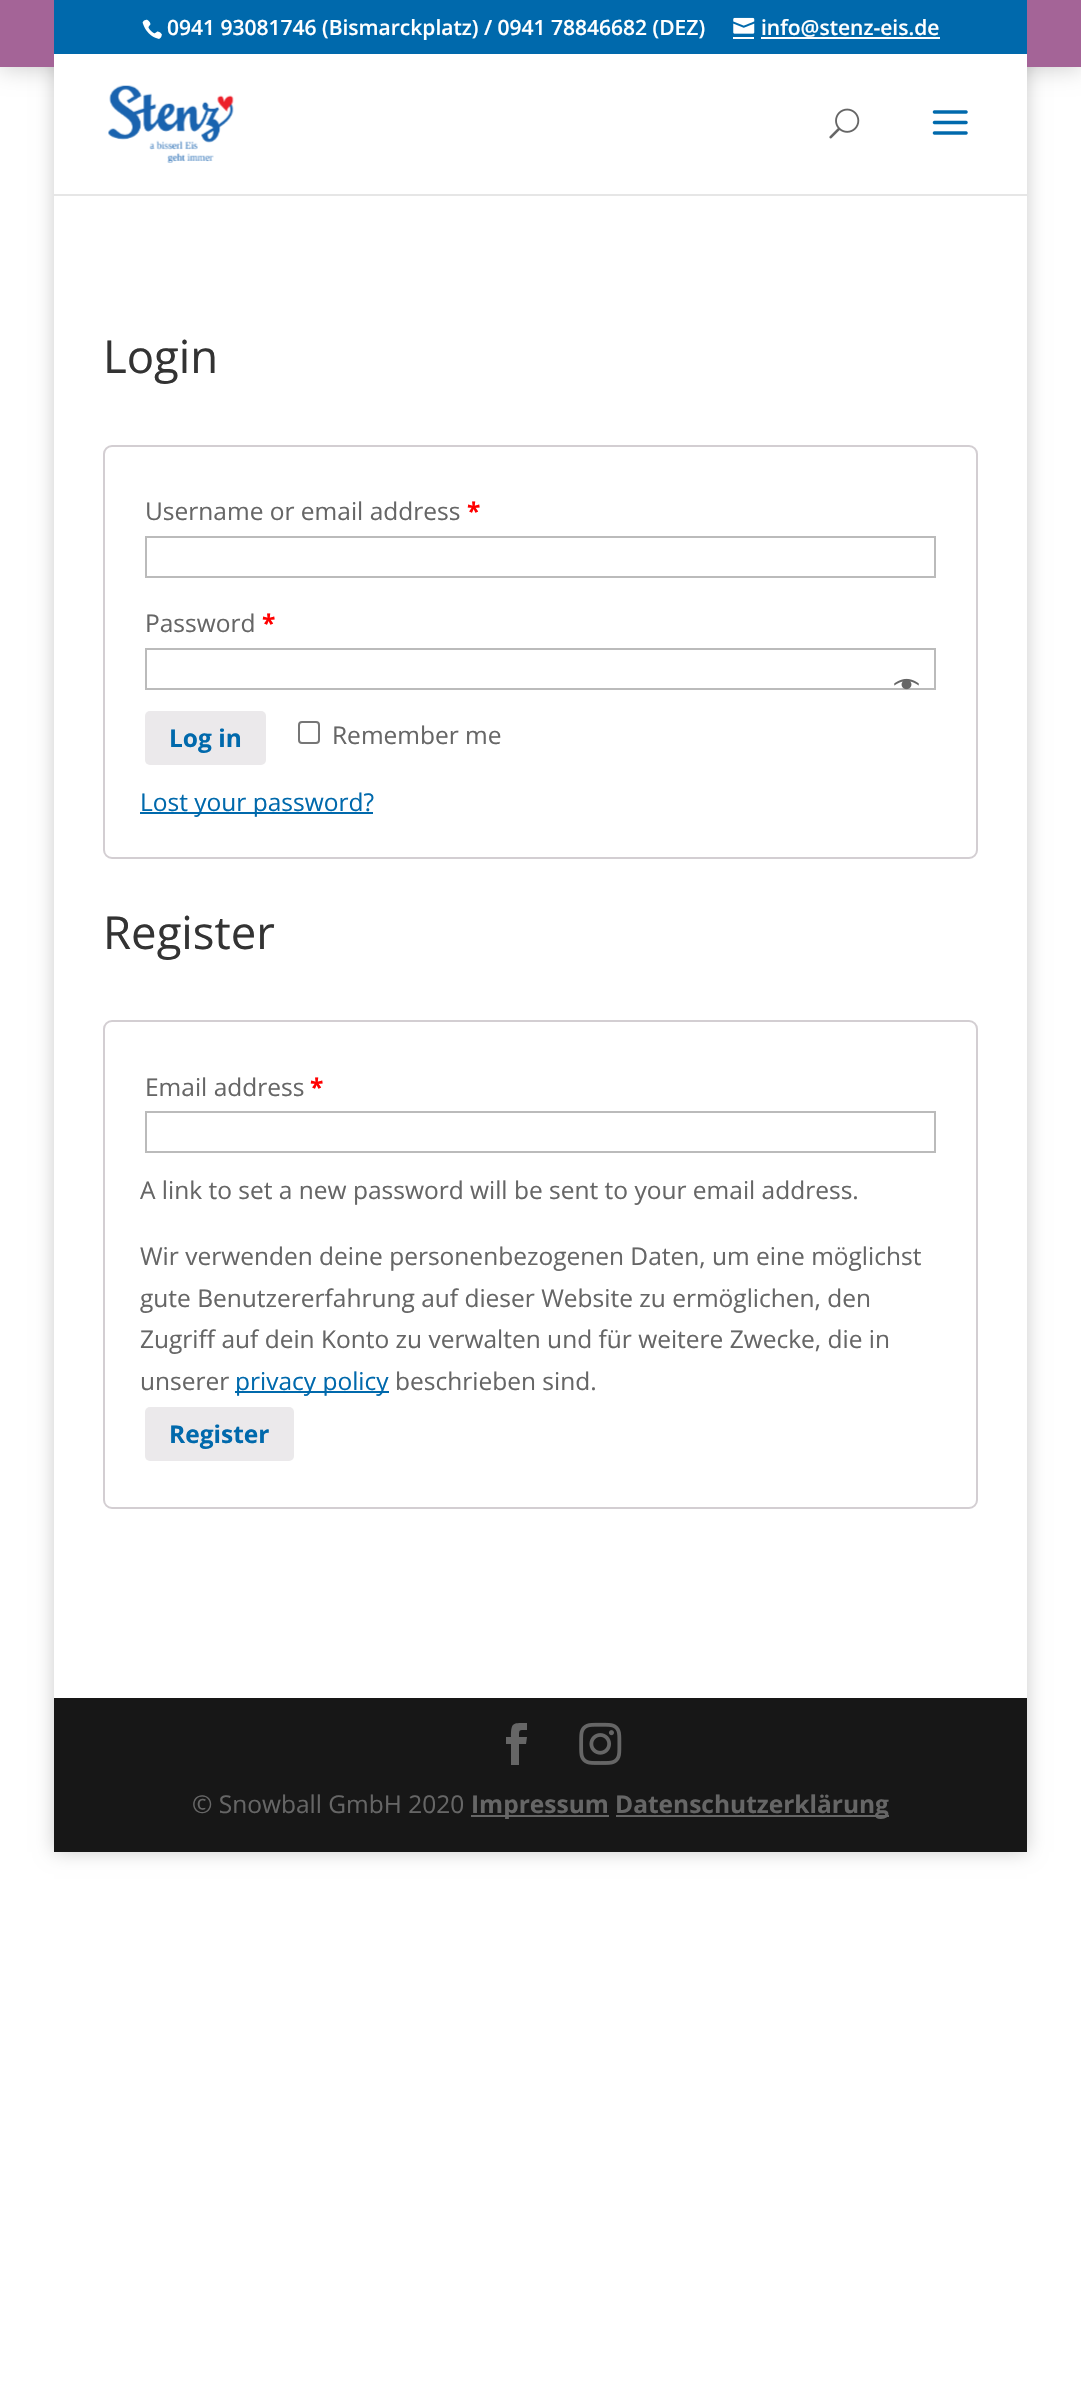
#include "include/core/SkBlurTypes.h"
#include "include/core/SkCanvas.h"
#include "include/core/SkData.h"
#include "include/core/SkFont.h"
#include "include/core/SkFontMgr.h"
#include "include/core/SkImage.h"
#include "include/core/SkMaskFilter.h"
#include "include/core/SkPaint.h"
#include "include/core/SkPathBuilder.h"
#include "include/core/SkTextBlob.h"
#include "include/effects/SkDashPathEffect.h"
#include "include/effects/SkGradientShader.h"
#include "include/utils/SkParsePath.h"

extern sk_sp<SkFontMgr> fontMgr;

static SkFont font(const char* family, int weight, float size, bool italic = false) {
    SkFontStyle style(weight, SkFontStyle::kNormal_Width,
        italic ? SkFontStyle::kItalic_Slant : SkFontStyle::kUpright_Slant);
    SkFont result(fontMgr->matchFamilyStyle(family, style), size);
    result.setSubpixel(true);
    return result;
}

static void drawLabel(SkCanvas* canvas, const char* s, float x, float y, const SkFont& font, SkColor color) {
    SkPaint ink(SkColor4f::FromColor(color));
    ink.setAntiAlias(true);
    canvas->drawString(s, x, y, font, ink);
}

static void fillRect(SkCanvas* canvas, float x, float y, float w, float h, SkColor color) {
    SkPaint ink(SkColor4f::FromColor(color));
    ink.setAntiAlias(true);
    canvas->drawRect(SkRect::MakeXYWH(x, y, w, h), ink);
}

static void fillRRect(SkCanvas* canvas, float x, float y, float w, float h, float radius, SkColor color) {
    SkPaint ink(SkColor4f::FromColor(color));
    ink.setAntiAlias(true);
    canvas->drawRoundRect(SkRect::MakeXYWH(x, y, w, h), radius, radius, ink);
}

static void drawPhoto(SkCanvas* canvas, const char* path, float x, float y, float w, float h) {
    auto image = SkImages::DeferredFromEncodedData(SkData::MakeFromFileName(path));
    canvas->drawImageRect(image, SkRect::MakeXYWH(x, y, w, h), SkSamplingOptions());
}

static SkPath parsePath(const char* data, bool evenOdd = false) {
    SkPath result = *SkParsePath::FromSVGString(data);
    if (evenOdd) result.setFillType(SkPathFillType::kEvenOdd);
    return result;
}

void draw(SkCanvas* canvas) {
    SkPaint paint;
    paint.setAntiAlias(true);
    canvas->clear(0xFFFFFFFF);
    paint.setColor(0x33000000);
    paint.setMaskFilter(SkMaskFilter::MakeBlur(kNormal_SkBlurStyle, 12));
    canvas->drawRect(SkRect::MakeXYWH(0, 2, 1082, 66), paint);
    paint.setMaskFilter(nullptr);
    paint.setMaskFilter(SkMaskFilter::MakeBlur(kNormal_SkBlurStyle, 9));
    canvas->drawRect(SkRect::MakeXYWH(54, 0, 973, 1852), paint);
    paint.setMaskFilter(nullptr);
    fillRect(canvas, 0, 0, 1081, 67, 0xFFA46497);
    fillRect(canvas, 54, 0, 973, 54, 0xFF0069AC);
    drawPhoto(canvas, "assets/img1.png", 142, 19, 20, 20);
    SkFont font1 = font("Open Sans", 600, 21);
    drawLabel(canvas, "0941 93081746 (Bismarckplatz) / 0941 78846682 (DEZ)", 167, 35, font1, 0xFFFFFFFF);
    drawPhoto(canvas, "assets/img2.png", 733, 17, 22, 17);
    drawLabel(canvas, "info@stenz-eis.de", 761, 35, font1, 0xFFFFFFFF);
    fillRect(canvas, 733, 37, 21, 2, 0xFFFFFFFF);
    fillRect(canvas, 761, 37, 179, 2, 0xFFFFFFFF);
    paint.setColor(0xFFE6E6E6);
    canvas->drawPath(parsePath("M54 56V196H1027V194H54Z"), paint);
    fillRect(canvas, 54, 54, 973, 140, 0xFFFFFFFF);
    drawPhoto(canvas, "assets/img3.png", 108, 85, 126, 78);
    drawPhoto(canvas, "assets/img4.png", 829, 108, 31, 31);
    drawPhoto(canvas, "assets/img5.png", 932, 110, 36, 25);
    fillRect(canvas, 54, 196, 973, 1502, 0xFFFFFFFF);
    SkFont font2 = font("Open Sans", 400, 45.5f);
    drawLabel(canvas, "Login", 103, 373, font2, 0xFF333333);
    paint.setStroke(true);
    paint.setStrokeWidth(2);
    paint.setColor(0xFFD3CED2);
    canvas->drawRoundRect(SkRect::MakeXYWH(104, 446, 873, 412), 8, 8, paint);
    SkFont font3 = font("Open Sans", 400, 24.5f);
    drawLabel(canvas, "Username or email address", 145, 520, font3, 0xFF666666);
    SkFont font4 = font("Open Sans", 700, 24.5f);
    drawLabel(canvas, "*", 467, 520, font4, 0xFFFF0000);
    paint.setColor(0xFFBBBBBB);
    canvas->drawRect(SkRect::MakeXYWH(146, 537, 789, 40), paint);
    drawLabel(canvas, "Password", 145, 632, font3, 0xFF666666);
    drawLabel(canvas, "*", 262, 632, font4, 0xFFFF0000);
    canvas->drawRect(SkRect::MakeXYWH(146, 649, 789, 40), paint);
    drawPhoto(canvas, "assets/img6.png", 894, 678, 25, 12);
    fillRRect(canvas, 145, 711, 121, 54, 5, 0xFFEBE9EB);
    drawLabel(canvas, "Log in", 169, 747, font4, 0xFF0069AC);
    paint.setColor(0xFF767676);
    canvas->drawRoundRect(SkRect::MakeXYWH(299, 722, 20, 21), 3, 3, paint);
    drawLabel(canvas, "Remember me", 332, 744, font3, 0xFF666666);
    fillRect(canvas, 140, 812, 233, 2, 0xFF0069AC);
    drawLabel(canvas, "Lost your password?", 140, 811, font3, 0xFF0069AC);
    drawLabel(canvas, "Register", 103, 949, font2, 0xFF333333);
    paint.setColor(0xFFD3CED2);
    canvas->drawRoundRect(SkRect::MakeXYWH(104, 1021, 873, 487), 8, 8, paint);
    drawLabel(canvas, "Email address", 145, 1096, font3, 0xFF666666);
    drawLabel(canvas, "*", 310, 1096, font4, 0xFFFF0000);
    paint.setColor(0xFFBBBBBB);
    canvas->drawRect(SkRect::MakeXYWH(146, 1112, 789, 40), paint);
    drawLabel(canvas, "A link to set a new password will be sent to your email address.", 140, 1199, font3, 0xFF666666);
    drawLabel(canvas, "Wir verwenden deine personenbezogenen Daten, um eine möglichst", 140, 1265, font3, 0xFF666666);
    drawLabel(canvas, "gute Benutzererfahrung auf dieser Website zu ermöglichen, den", 140, 1307, font3, 0xFF666666);
    drawLabel(canvas, "Zugriff auf dein Konto zu verwalten und für weitere Zwecke, die in", 140, 1348, font3, 0xFF666666);
    drawLabel(canvas, "unserer", 140, 1390, font3, 0xFF666666);
    fillRect(canvas, 235, 1391, 154, 2, 0xFF0069AC);
    drawLabel(canvas, "privacy policy", 235, 1390, font3, 0xFF0069AC);
    drawLabel(canvas, "beschrieben sind.", 395, 1390, font3, 0xFF666666);
    fillRRect(canvas, 145, 1407, 149, 54, 5, 0xFFEBE9EB);
    drawLabel(canvas, "Register", 169, 1443, font4, 0xFF0069AC);
    fillRect(canvas, 54, 1698, 973, 154, 0xFF171717);
    paint.setStroke(false);
    paint.setColor(0xFF666666);
    canvas->drawPath(parsePath("M511 1765H519V1744H526L527 1737H519C519 1729 519 1730 527 1730V1723C513 1723 511 1722 511 1737H506V1744H511Z"), paint);
    drawPhoto(canvas, "assets/img7.png", 579, 1722, 43, 43);
    drawLabel(canvas, "© Snowball GmbH 2020", 192, 1813, font3, 0xFF666666);
    fillRect(canvas, 471, 1815, 138, 2, 0xFF666666);
    drawLabel(canvas, "Impressum", 471, 1813, font4, 0xFF666666);
    fillRect(canvas, 616, 1815, 273, 2, 0xFF666666);
    drawLabel(canvas, "Datenschutzerklärung", 615, 1813, font4, 0xFF666666);
}
